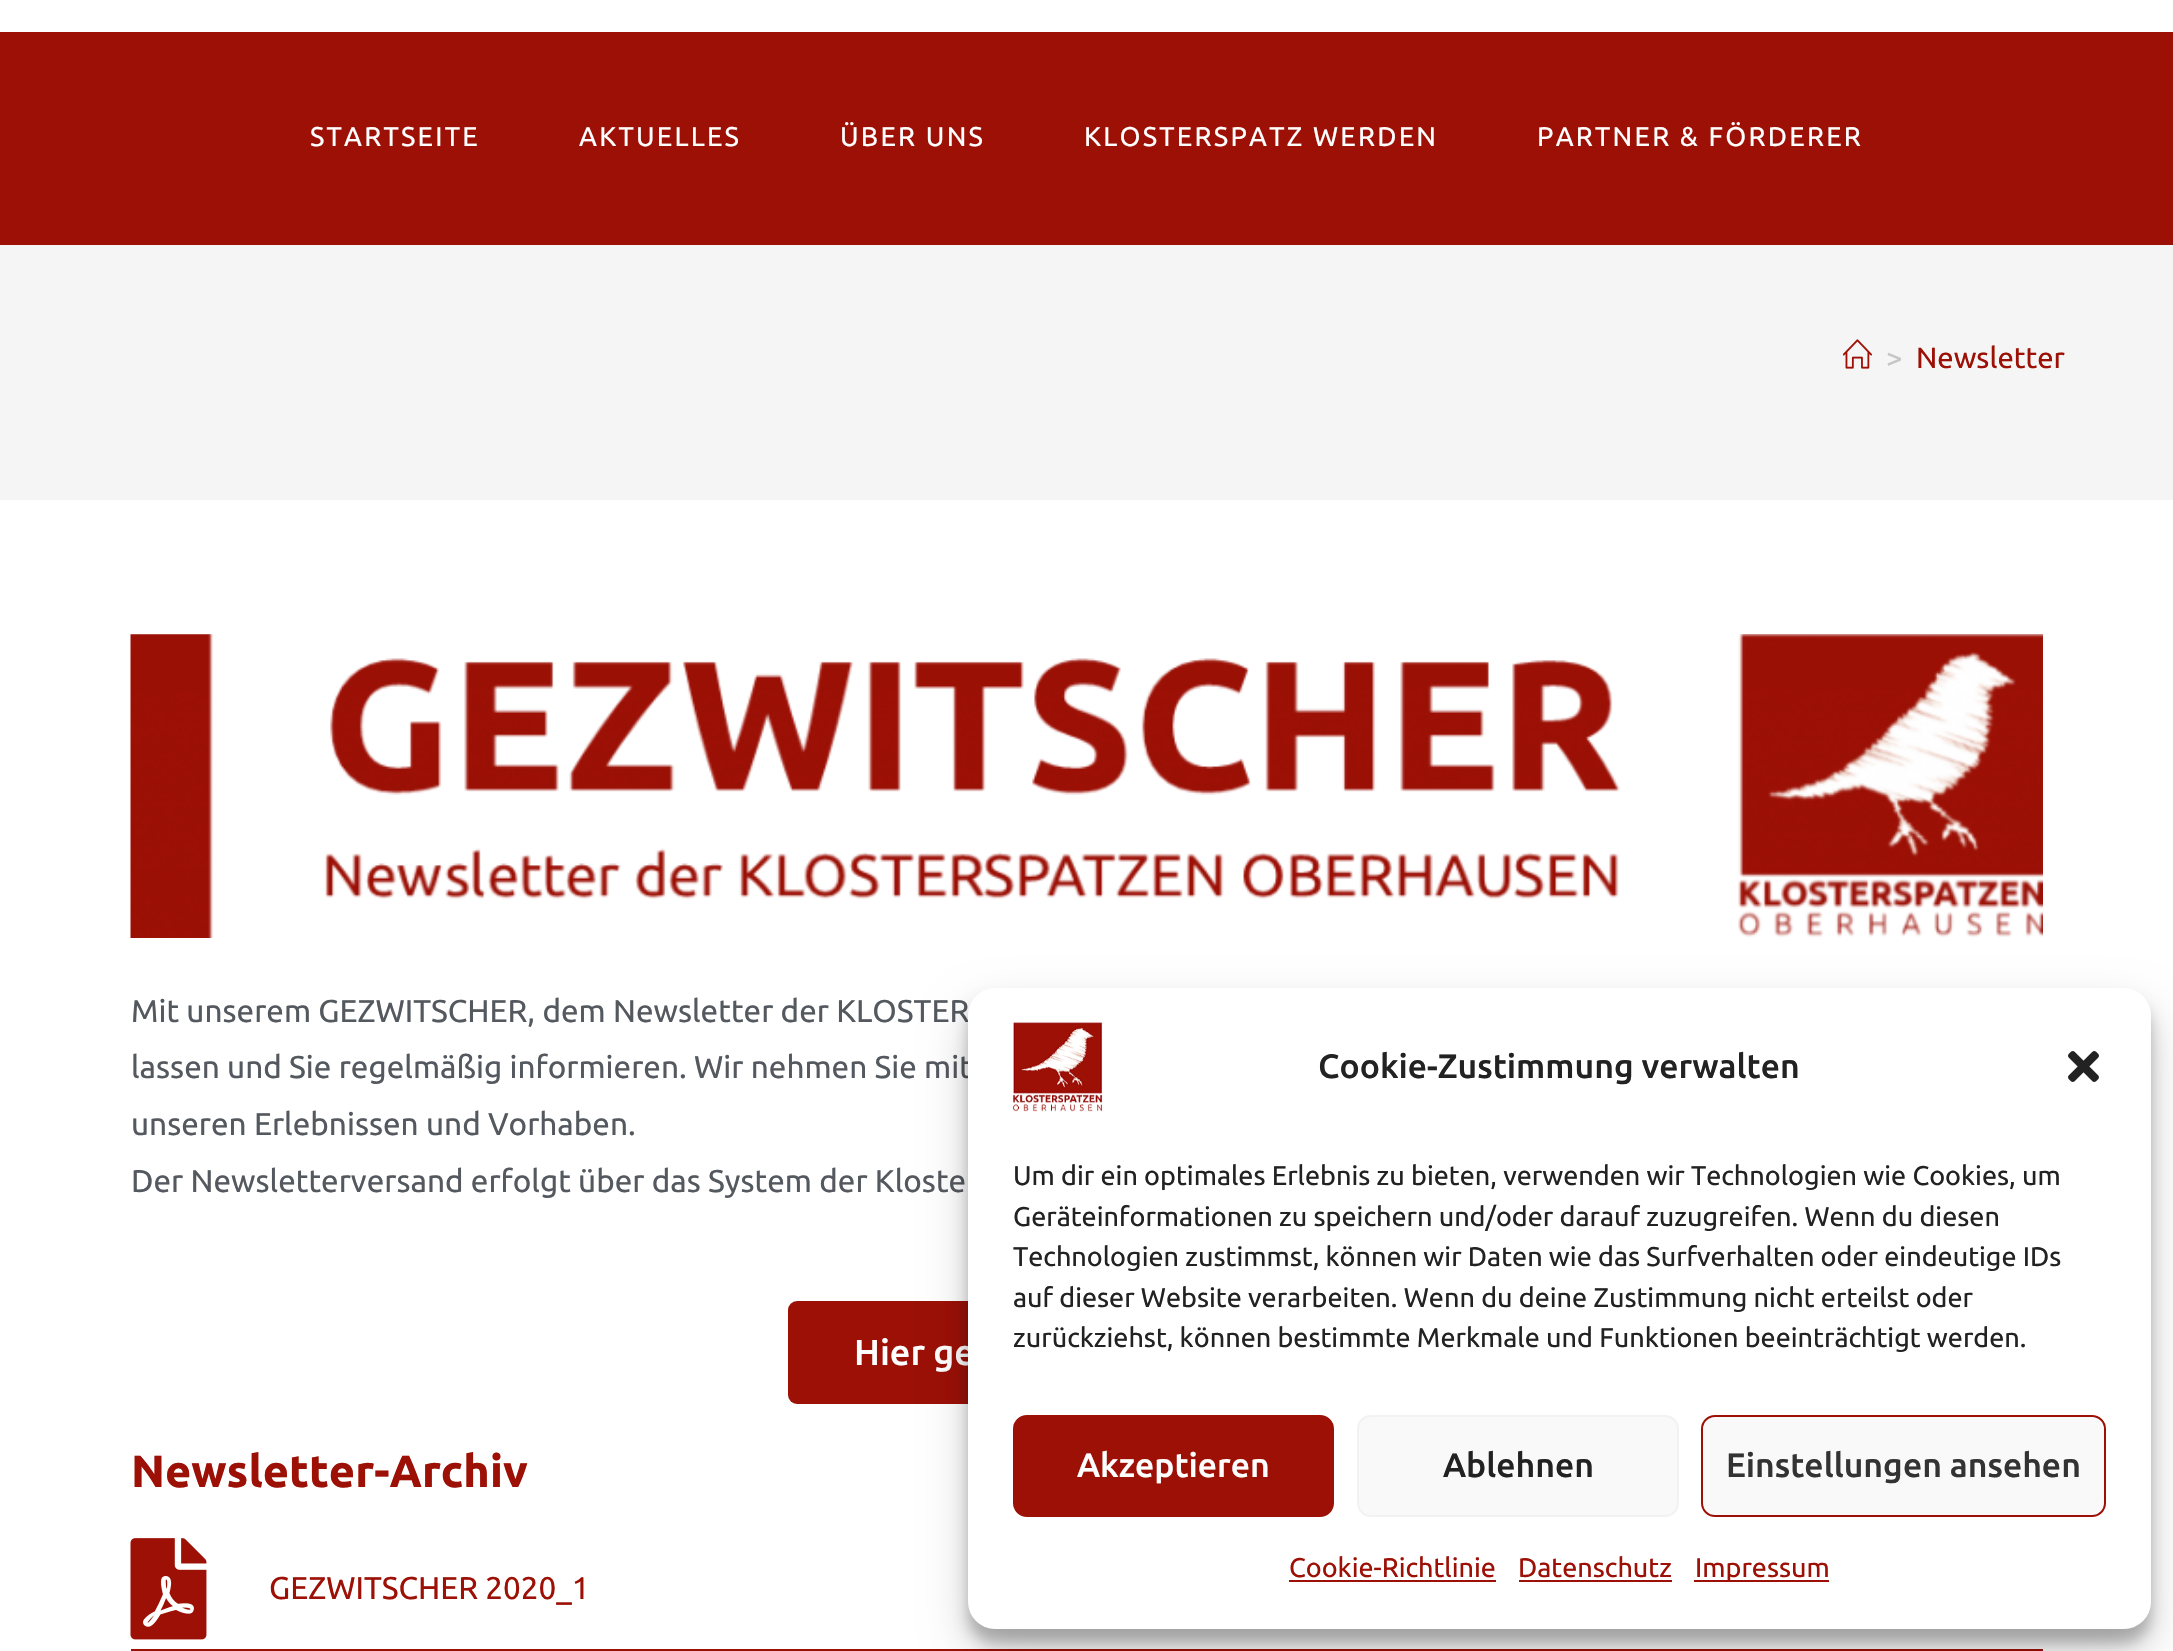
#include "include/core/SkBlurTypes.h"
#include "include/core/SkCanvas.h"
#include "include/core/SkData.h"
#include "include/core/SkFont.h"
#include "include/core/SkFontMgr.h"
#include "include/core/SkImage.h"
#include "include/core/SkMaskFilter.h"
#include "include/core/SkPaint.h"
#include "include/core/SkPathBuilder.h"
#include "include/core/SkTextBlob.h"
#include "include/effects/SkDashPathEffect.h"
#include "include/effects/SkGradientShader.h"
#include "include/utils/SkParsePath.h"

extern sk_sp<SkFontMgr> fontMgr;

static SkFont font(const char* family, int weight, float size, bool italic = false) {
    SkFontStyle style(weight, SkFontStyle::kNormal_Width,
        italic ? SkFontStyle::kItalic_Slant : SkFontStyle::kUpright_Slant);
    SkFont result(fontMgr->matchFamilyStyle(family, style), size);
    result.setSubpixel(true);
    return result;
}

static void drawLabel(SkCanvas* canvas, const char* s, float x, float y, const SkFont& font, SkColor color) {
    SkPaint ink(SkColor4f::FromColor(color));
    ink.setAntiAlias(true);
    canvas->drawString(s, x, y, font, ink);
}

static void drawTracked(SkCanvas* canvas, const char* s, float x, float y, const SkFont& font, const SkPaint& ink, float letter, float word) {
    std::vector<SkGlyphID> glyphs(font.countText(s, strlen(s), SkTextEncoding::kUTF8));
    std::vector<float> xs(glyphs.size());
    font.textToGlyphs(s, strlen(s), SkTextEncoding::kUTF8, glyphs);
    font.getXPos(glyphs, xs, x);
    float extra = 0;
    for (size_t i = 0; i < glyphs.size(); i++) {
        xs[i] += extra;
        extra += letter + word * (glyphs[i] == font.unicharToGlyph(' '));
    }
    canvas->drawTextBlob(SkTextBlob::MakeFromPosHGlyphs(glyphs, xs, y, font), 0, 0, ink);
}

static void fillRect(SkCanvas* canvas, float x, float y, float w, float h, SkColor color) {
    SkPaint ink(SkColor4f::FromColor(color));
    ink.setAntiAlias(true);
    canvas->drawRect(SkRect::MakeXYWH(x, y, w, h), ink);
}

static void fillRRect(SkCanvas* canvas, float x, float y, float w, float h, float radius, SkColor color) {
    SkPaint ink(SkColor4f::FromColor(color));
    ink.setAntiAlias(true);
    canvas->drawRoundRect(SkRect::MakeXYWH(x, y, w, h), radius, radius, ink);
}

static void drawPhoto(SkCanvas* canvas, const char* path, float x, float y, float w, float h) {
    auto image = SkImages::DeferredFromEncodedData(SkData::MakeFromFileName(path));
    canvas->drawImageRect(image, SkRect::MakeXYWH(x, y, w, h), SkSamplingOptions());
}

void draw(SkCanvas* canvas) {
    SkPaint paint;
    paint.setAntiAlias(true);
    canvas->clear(0xFFFFFFFF);
    fillRect(canvas, 0, 243, 2173, 2, 0xFF9C1006);
    fillRect(canvas, 0, 32, 2173, 211, 0xFF9D1005);
    SkFont font1 = font("Ubuntu", 400, 27);
    paint.setColor(0xFFFFFFFF);
    drawTracked(canvas, "STARTSEITE", 310, 146, font1, paint, 2.25f, 0);
    drawTracked(canvas, "AKTUELLES", 579, 146, font1, paint, 2.25f, 0);
    drawTracked(canvas, "ÜBER UNS", 840, 146, font1, paint, 2.25f, 0);
    drawTracked(canvas, "KLOSTERSPATZ WERDEN", 1084, 146, font1, paint, 2.25f, 0);
    drawTracked(canvas, "PARTNER & FÖRDERER", 1537, 146, font1, paint, 2.25f, 0);
    fillRect(canvas, 0, 245, 2173, 255, 0xFFF5F5F5);
    drawPhoto(canvas, "assets/img1.png", 1843, 339, 29, 30);
    SkFont font2 = font("Ubuntu", 400, 29.25f);
    drawLabel(canvas, ">", 1886, 368, font2, 0xFFC6C6C6);
    drawLabel(canvas, "Newsletter", 1916, 368, font2, 0xFF9C1006);
    drawPhoto(canvas, "assets/img2.png", 130, 634, 1913, 304);
    SkFont font3 = font("Ubuntu", 400, 31.5f);
    drawLabel(canvas, "Mit unserem GEZWITSCHER, dem Newsletter der KLOSTER", 131, 1022, font3, 0xFF54595F);
    drawLabel(canvas, "lassen und Sie regelmäßig informieren. Wir nehmen Sie mit", 131, 1078, font3, 0xFF54595F);
    drawLabel(canvas, "unseren Erlebnissen und Vorhaben.", 131, 1135, font3, 0xFF54595F);
    drawLabel(canvas, "Der Newsletterversand erfolgt über das System der Kloste", 131, 1192, font3, 0xFF54595F);
    fillRRect(canvas, 788, 1301, 598, 103, 9, 0xFF9C1006);
    SkFont font4 = font("Ubuntu", 500, 36);
    drawLabel(canvas, "Hier ge", 854, 1365, font4, 0xFFFFFFFF);
    SkFont font5 = font("Ubuntu", 700, 45);
    drawLabel(canvas, "Newsletter-Archiv", 131, 1487, font5, 0xFF9C1006);
    drawPhoto(canvas, "assets/img3.png", 130, 1538, 77, 102);
    drawLabel(canvas, "GEZWITSCHER 2020_1", 269, 1599, font3, 0xFF9C1006);
    fillRect(canvas, 131, 1649, 1912, 2, 0xFF9D1006);
    paint.setColor(0x3B000000);
    paint.setMaskFilter(SkMaskFilter::MakeBlur(kNormal_SkBlurStyle, 7));
    canvas->drawRoundRect(SkRect::MakeXYWH(968, 1001, 1183, 642), 27, 27, paint);
    paint.setMaskFilter(nullptr);
    paint.setColor(0x30000000);
    paint.setMaskFilter(SkMaskFilter::MakeBlur(kNormal_SkBlurStyle, 22.5f));
    canvas->drawRoundRect(SkRect::MakeXYWH(968, 1010, 1183, 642), 27, 27, paint);
    paint.setMaskFilter(nullptr);
    fillRRect(canvas, 968, 988, 1183, 641, 27, 0xFFFFFFFF);
    drawPhoto(canvas, "assets/img4.png", 1012, 1022, 91, 90);
    SkFont font6 = font("Ubuntu", 500, 33.75f);
    drawLabel(canvas, "Cookie-Zustimmung verwalten", 1318, 1078, font6, 0xFF222222);
    drawPhoto(canvas, "assets/img5.png", 2068, 1051, 31, 31);
    drawLabel(canvas, "Um dir ein optimales Erlebnis zu bieten, verwenden wir Technologien wie Cookies, um", 1013, 1185, font1, 0xFF222222);
    drawLabel(canvas, "Geräteinformationen zu speichern und/oder darauf zuzugreifen. Wenn du diesen", 1013, 1226, font1, 0xFF222222);
    drawLabel(canvas, "Technologien zustimmst, können wir Daten wie das Surfverhalten oder eindeutige IDs", 1013, 1266, font1, 0xFF222222);
    drawLabel(canvas, "auf dieser Website verarbeiten. Wenn du deine Zustimmung nicht erteilst oder", 1013, 1307, font1, 0xFF222222);
    drawLabel(canvas, "zurückziehst, können bestimmte Merkmale und Funktionen beeinträchtigt werden.", 1013, 1347, font1, 0xFF222222);
    paint.setColor(0xFF9D1005);
    canvas->drawRoundRect(SkRect::MakeXYWH(1014, 1416, 319, 100), 13, 13, paint);
    paint.setStroke(true);
    paint.setStrokeWidth(2);
    canvas->drawRoundRect(SkRect::MakeXYWH(1014, 1416, 319, 100), 13, 13, paint);
    drawLabel(canvas, "Akzeptieren", 1077, 1477, font6, 0xFFFFFFFF);
    paint.setStroke(false);
    paint.setColor(0xFFF9F9F9);
    canvas->drawRoundRect(SkRect::MakeXYWH(1358, 1416, 320, 100), 13, 13, paint);
    paint.setStroke(true);
    paint.setColor(0xFFF2F2F2);
    canvas->drawRoundRect(SkRect::MakeXYWH(1358, 1416, 320, 100), 13, 13, paint);
    drawLabel(canvas, "Ablehnen", 1443, 1477, font6, 0xFF222222);
    paint.setStroke(false);
    paint.setColor(0xFFF9F9F9);
    canvas->drawRoundRect(SkRect::MakeXYWH(1702, 1416, 403, 100), 13, 13, paint);
    paint.setStroke(true);
    paint.setColor(0xFF9D1005);
    canvas->drawRoundRect(SkRect::MakeXYWH(1702, 1416, 403, 100), 13, 13, paint);
    drawLabel(canvas, "Einstellungen ansehen", 1726, 1477, font6, 0xFF333333);
    drawLabel(canvas, "Cookie-Richtlinie", 1289, 1577, font1, 0xFF9C1006);
    fillRect(canvas, 1289, 1580, 207, 2, 0xFF9D1005);
    drawLabel(canvas, "Datenschutz", 1518, 1577, font1, 0xFF9C1006);
    fillRect(canvas, 1519, 1580, 153, 2, 0xFF9D1005);
    fillRect(canvas, 1694, 1580, 135, 2, 0xFF9D1005);
    drawLabel(canvas, "Impressum", 1695, 1577, font1, 0xFF9C1006);
}
